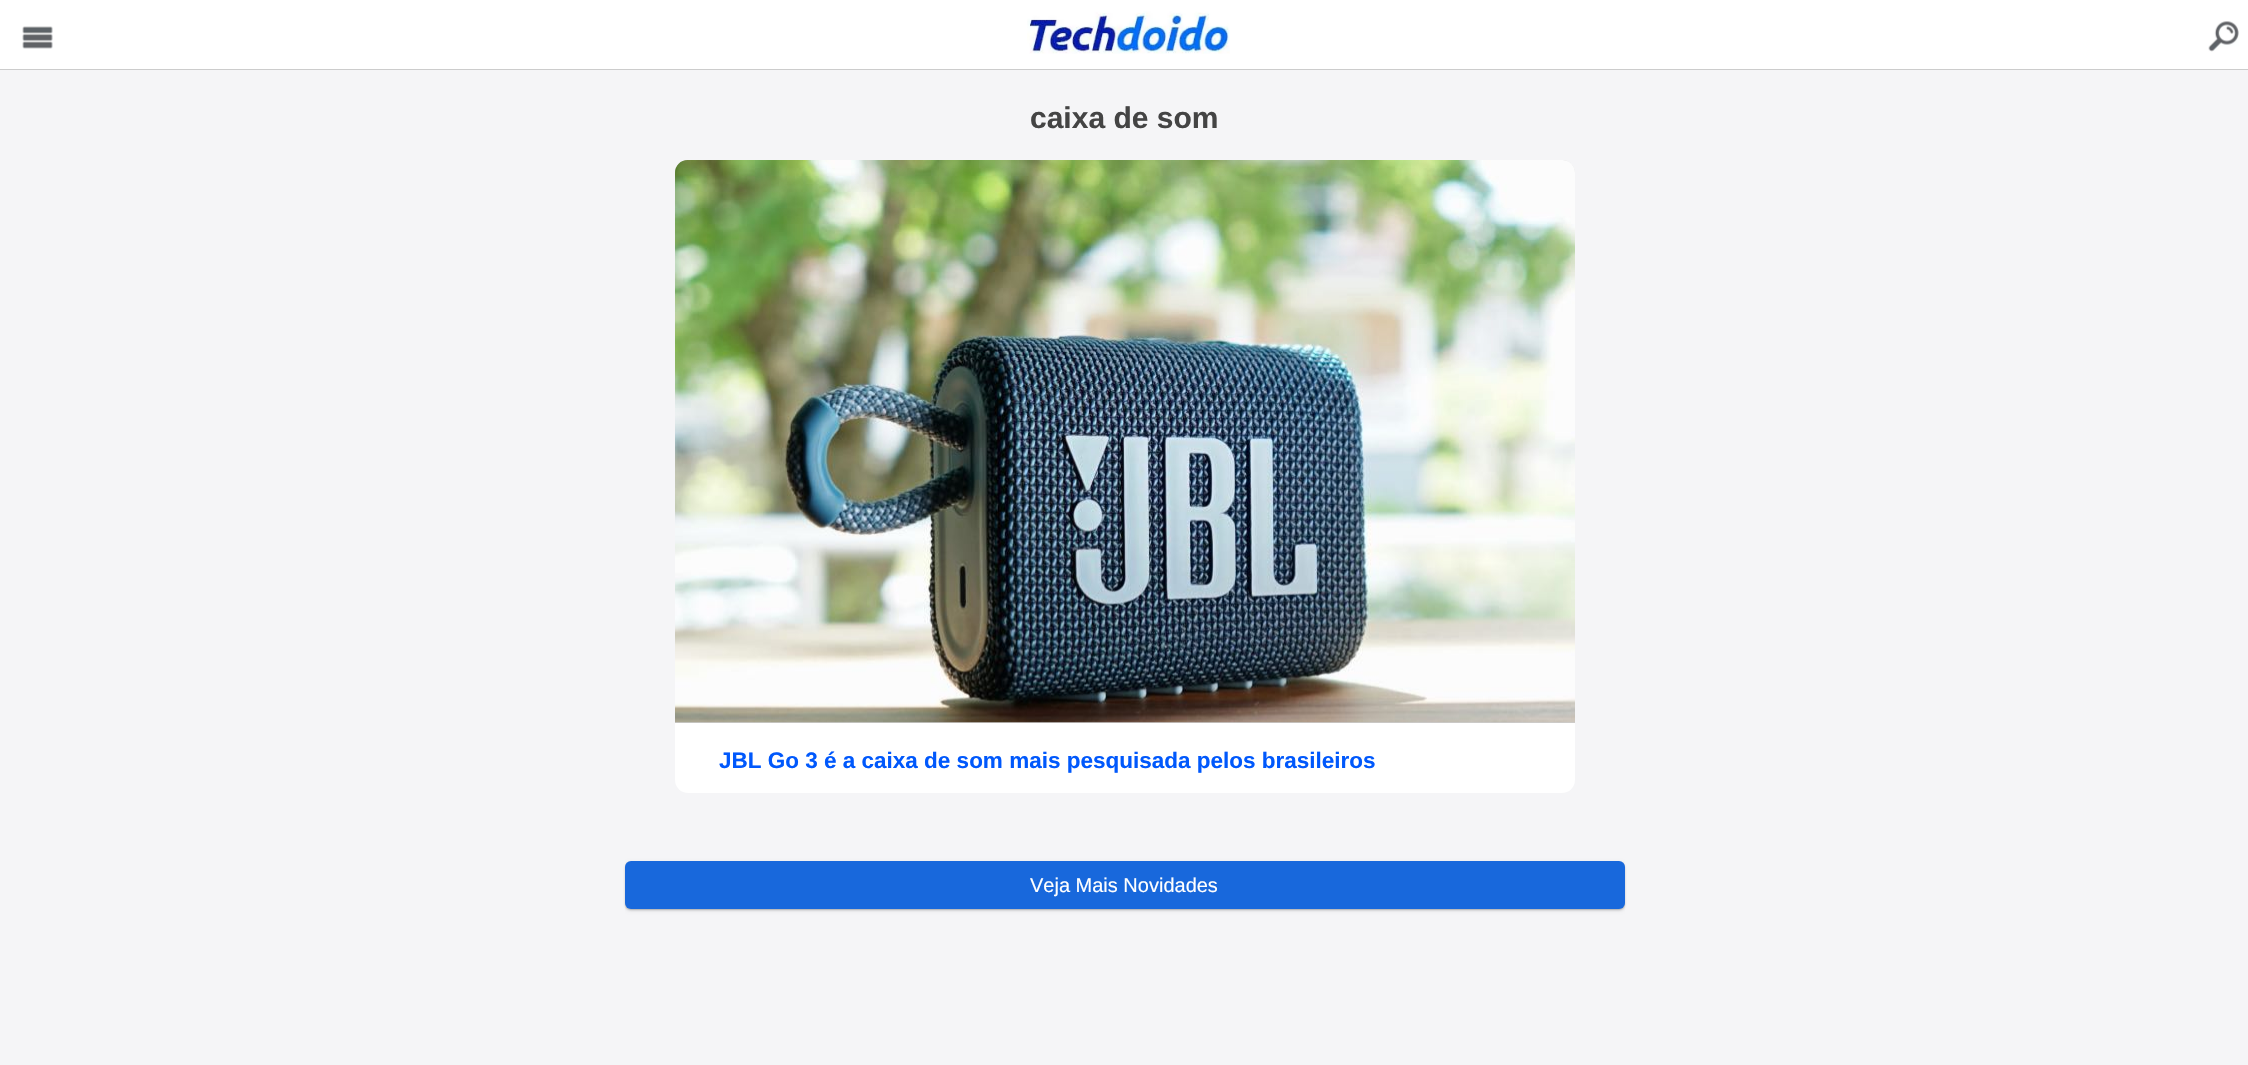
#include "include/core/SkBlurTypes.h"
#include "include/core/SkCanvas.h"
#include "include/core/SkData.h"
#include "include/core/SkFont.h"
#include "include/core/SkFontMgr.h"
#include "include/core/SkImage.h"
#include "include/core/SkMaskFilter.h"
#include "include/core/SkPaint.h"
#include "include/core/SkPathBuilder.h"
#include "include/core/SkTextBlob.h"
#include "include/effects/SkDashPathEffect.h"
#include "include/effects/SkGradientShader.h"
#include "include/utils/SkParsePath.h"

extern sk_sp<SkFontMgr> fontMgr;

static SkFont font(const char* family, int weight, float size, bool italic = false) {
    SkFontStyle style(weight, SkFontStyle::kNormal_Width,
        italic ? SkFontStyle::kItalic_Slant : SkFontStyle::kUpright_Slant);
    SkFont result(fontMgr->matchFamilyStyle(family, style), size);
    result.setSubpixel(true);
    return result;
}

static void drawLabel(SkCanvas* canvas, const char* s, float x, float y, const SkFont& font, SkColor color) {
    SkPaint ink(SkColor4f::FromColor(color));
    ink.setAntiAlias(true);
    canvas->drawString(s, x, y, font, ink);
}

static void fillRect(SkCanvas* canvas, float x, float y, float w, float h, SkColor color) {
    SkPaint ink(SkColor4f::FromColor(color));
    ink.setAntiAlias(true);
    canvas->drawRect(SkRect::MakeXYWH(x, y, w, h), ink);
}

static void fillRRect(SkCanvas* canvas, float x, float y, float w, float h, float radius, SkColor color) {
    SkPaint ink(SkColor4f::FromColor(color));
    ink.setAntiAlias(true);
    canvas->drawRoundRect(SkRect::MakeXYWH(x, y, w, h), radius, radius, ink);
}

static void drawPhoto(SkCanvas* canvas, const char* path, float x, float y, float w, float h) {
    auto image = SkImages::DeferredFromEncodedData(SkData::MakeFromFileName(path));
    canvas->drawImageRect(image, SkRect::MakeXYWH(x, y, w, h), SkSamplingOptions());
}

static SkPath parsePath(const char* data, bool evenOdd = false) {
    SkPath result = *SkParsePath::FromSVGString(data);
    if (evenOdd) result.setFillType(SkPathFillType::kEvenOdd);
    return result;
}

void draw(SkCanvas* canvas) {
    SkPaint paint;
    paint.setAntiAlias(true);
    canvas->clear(0xFFF5F5F7);
    fillRect(canvas, 0, 0, 2248, 69, 0xFFFFFFFF);
    fillRect(canvas, 0, 69, 2248, 1, 0xFFCCCCCC);
    drawPhoto(canvas, "assets/img1.png", 1027, 11, 203, 43);
    drawPhoto(canvas, "assets/img2.png", 22, 26, 31, 23);
    drawPhoto(canvas, "assets/img3.png", 2208, 21, 31, 31);
    SkFont font1 = font("Liberation Sans", 700, 30);
    drawLabel(canvas, "caixa de som", 1030, 128, font1, 0xFF444444);
    fillRRect(canvas, 675, 160, 900, 633, 13, 0xFFFFFFFF);
    paint.setColor(0xFFCCCCCC);
    canvas->drawPath(parsePath("M688 160H1562C1569 160 1575 166 1575 173V723H675V173C675 166 681 160 688 160Z"), paint);
    drawPhoto(canvas, "assets/img4.png", 675, 160, 900, 563);
    SkFont font2 = font("Liberation Sans", 700, 22.5f);
    drawLabel(canvas, "JBL Go 3 é a caixa de som mais pesquisada pelos brasileiros", 719, 768, font2, 0xFF0058FC);
    paint.setColor(0x3D000000);
    paint.setMaskFilter(SkMaskFilter::MakeBlur(kNormal_SkBlurStyle, 1));
    canvas->drawRoundRect(SkRect::MakeXYWH(625, 863, 1000, 47), 6, 6, paint);
    paint.setMaskFilter(nullptr);
    canvas->save();
    canvas->clipRect(SkRect::MakeXYWH(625, 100, 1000, 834));
    paint.setColor(0x1F000000);
    paint.setMaskFilter(SkMaskFilter::MakeBlur(kNormal_SkBlurStyle, 2));
    canvas->drawRoundRect(SkRect::MakeXYWH(625, 863, 1000, 47), 6, 6, paint);
    paint.setMaskFilter(nullptr);
    canvas->restore();
    fillRRect(canvas, 625, 861, 1000, 48, 6, 0xFF1868DC);
    SkFont font3 = font("Liberation Sans", 400, 20);
    drawLabel(canvas, "Veja Mais Novidades", 1030, 892, font3, 0xFFFFFFFF);
}
